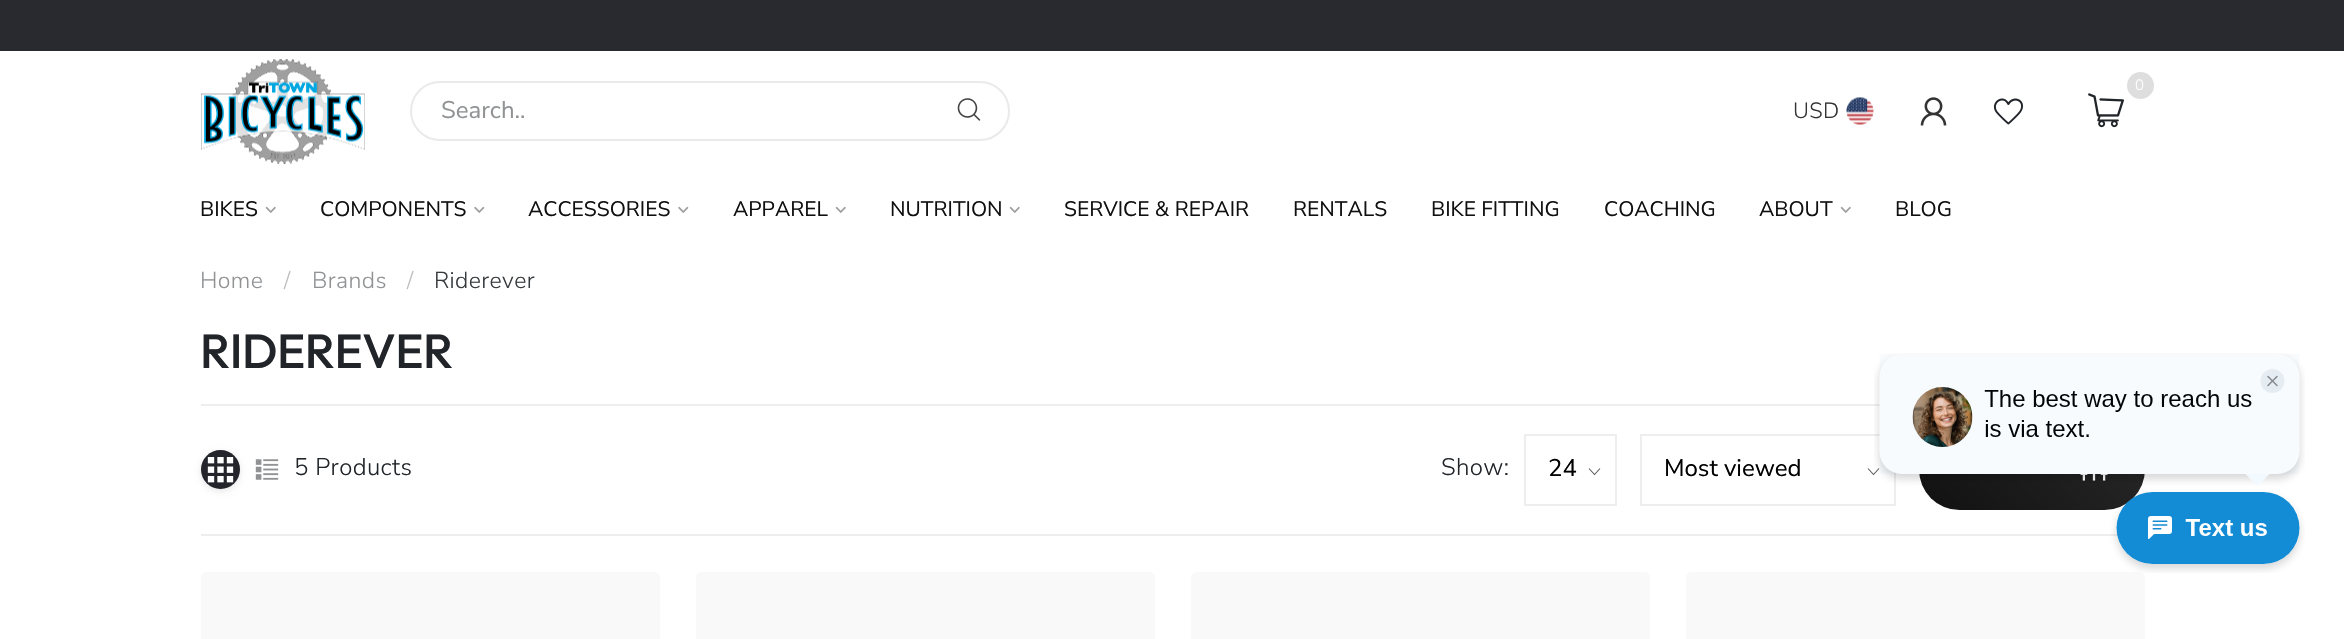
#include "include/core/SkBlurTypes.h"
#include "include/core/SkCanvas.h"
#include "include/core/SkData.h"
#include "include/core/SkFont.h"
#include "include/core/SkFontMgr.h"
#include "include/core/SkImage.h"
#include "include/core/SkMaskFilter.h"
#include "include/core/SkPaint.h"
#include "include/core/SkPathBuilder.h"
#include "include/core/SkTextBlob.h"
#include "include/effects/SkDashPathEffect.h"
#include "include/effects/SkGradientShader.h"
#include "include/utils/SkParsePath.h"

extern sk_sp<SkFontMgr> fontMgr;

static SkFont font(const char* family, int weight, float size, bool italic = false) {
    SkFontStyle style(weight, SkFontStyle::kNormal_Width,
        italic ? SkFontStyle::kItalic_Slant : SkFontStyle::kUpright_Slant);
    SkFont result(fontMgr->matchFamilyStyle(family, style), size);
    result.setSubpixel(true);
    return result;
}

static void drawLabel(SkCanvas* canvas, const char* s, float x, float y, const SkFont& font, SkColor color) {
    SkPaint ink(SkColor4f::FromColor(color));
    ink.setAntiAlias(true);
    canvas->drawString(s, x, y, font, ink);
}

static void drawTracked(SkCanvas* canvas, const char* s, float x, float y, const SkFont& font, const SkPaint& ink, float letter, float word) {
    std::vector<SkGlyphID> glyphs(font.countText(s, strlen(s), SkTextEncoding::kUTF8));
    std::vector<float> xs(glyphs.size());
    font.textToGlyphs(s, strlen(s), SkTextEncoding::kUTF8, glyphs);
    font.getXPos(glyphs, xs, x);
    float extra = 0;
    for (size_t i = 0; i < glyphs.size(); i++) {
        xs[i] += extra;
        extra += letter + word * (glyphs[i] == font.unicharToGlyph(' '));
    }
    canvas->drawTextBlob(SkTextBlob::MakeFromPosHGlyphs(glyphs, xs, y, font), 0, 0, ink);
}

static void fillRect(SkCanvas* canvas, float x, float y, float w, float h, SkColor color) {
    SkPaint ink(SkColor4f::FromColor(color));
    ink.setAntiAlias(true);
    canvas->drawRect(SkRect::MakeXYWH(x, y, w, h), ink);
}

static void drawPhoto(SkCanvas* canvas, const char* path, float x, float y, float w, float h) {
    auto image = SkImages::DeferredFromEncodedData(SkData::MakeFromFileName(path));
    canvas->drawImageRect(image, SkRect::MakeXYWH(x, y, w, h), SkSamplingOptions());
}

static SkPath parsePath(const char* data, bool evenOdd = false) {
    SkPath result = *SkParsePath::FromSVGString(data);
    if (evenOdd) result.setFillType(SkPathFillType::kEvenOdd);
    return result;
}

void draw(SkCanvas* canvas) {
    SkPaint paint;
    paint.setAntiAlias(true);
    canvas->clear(0xFFFFFFFF);
    fillRect(canvas, 0, 0, 2344, 51, 0xFF282A30);
    drawPhoto(canvas, "assets/img1.png", 201, 59, 164, 105);
    paint.setStroke(true);
    paint.setStrokeWidth(2);
    paint.setColor(0xFFEAEAEA);
    canvas->drawRoundRect(SkRect::MakeXYWH(411, 82, 598, 58), 29, 29, paint);
    SkFont font1 = font("Nunito Sans", 400, 24);
    drawLabel(canvas, "Search..", 441, 118, font1, 0xFF909294);
    drawPhoto(canvas, "assets/img2.png", 957, 98, 24, 23);
    paint.setStroke(false);
    paint.setColor(0xFFDEDEDE);
    canvas->drawCircle(2140.5f, 85.5f, 13.5f, paint);
    SkFont font2 = font("Nunito Sans", 300, 15);
    paint.setColor(0xFFFFFFFF);
    drawTracked(canvas, "0", 2135, 90, font2, paint, 0.4f, 0);
    drawPhoto(canvas, "assets/img3.png", 2088, 93, 36, 35);
    SkFont font3 = font("Nunito Sans", 300, 22);
    paint.setColor(0xFF333333);
    drawTracked(canvas, "USD", 1793, 118, font3, paint, 0.4f, 0);
    drawPhoto(canvas, "assets/img4.png", 1846, 97, 28, 28);
    drawPhoto(canvas, "assets/img5.png", 1920, 97, 27, 29);
    drawPhoto(canvas, "assets/img6.png", 1993, 98, 30, 27);
    SkFont font4 = font("Nunito Sans", 400, 21);
    drawLabel(canvas, "BIKES", 200, 216, font4, 0xFF101010);
    drawPhoto(canvas, "assets/img7.png", 265, 206, 11, 7);
    drawLabel(canvas, "COMPONENTS", 320, 216, font4, 0xFF101010);
    drawPhoto(canvas, "assets/img8.png", 474, 206, 11, 7);
    drawLabel(canvas, "ACCESSORIES", 528, 216, font4, 0xFF101010);
    drawPhoto(canvas, "assets/img8.png", 678, 206, 11, 7);
    drawLabel(canvas, "APPAREL", 733, 216, font4, 0xFF101010);
    drawPhoto(canvas, "assets/img7.png", 835, 206, 11, 7);
    drawLabel(canvas, "NUTRITION", 890, 216, font4, 0xFF101010);
    drawPhoto(canvas, "assets/img7.png", 1009, 206, 11, 7);
    drawLabel(canvas, "SERVICE & REPAIR", 1064, 216, font4, 0xFF101010);
    drawLabel(canvas, "RENTALS", 1293, 216, font4, 0xFF101010);
    drawLabel(canvas, "BIKE FITTING", 1431, 216, font4, 0xFF101010);
    drawLabel(canvas, "COACHING", 1604, 216, font4, 0xFF101010);
    drawLabel(canvas, "ABOUT", 1759, 216, font4, 0xFF101010);
    drawPhoto(canvas, "assets/img7.png", 1840, 206, 11, 7);
    drawLabel(canvas, "BLOG", 1895, 216, font4, 0xFF101010);
    SkFont font5 = font("Nunito Sans", 300, 23);
    paint.setColor(0xFF909294);
    drawTracked(canvas, "Home", 200, 288, font5, paint, 0.4f, 0);
    paint.setColor(0xFFBCBEBF);
    drawTracked(canvas, "/", 284, 288, font5, paint, 0.4f, 0);
    paint.setColor(0xFF909294);
    drawTracked(canvas, "Brands", 312, 288, font5, paint, 0.4f, 0);
    paint.setColor(0xFFBCBEBF);
    drawTracked(canvas, "/", 407, 288, font5, paint, 0.4f, 0);
    paint.setColor(0xFF373B3E);
    drawTracked(canvas, "Riderever", 434, 288, font5, paint, 0.4f, 0);
    SkFont font6 = font("Outfit", 500, 48);
    paint.setColor(0xFF212529);
    drawTracked(canvas, "RIDEREVER", 200, 368, font6, paint, -0.5f, 0);
    fillRect(canvas, 201, 404, 1679, 2, 0xFFEEEEEE);
    fillRect(canvas, 201, 534, 1917, 2, 0xFFEEEEEE);
    paint.setColor(0x1A000000);
    paint.setMaskFilter(SkMaskFilter::MakeBlur(kNormal_SkBlurStyle, 3));
    canvas->drawRoundRect(SkRect::MakeXYWH(201, 452, 39, 39), 19.5f, 19.5f, paint);
    paint.setMaskFilter(nullptr);
    paint.setColor(0xFF24252B);
    canvas->drawCircle(220.5f, 469.5f, 19.5f, paint);
    drawPhoto(canvas, "assets/img9.png", 207, 457, 27, 26);
    drawPhoto(canvas, "assets/img10.png", 255, 459, 24, 21);
    SkFont font7 = font("Nunito Sans", 300, 24);
    paint.setColor(0xFF212529);
    drawTracked(canvas, "5 Products", 294, 475, font7, paint, 0.4f, 0);
    drawTracked(canvas, "Show:", 1441, 475, font7, paint, 0.4f, 0);
    paint.setStroke(true);
    paint.setStrokeWidth(1.1f);
    paint.setColor(0xFF595959);
    canvas->drawPath(parsePath("M1600 468.5L1594.5 474.5L1589 468.5"), paint);
    paint.setStrokeWidth(2);
    paint.setColor(0xFFEEEEEE);
    canvas->drawRect(SkRect::MakeXYWH(1525, 435, 91, 70), paint);
    drawLabel(canvas, "24", 1548, 476, font1, 0xFF000000);
    paint.setStrokeWidth(1.1f);
    paint.setColor(0xFF595959);
    canvas->drawPath(parsePath("M1879 468.5L1873.5 474.5L1868 468.5"), paint);
    paint.setStrokeWidth(2);
    paint.setColor(0xFFEEEEEE);
    canvas->drawRect(SkRect::MakeXYWH(1641, 435, 254, 70), paint);
    drawLabel(canvas, "Most viewed", 1664, 476, font1, 0xFF000000);
    paint.setStroke(false);
    {
        const SkColor colors[] = {0xFF111111, 0xFF282828};
        const float stops[] = {0, 1};
        const SkPoint ends[] = {{1955, 546}, {2109, 393}};
        paint.setShader(SkGradientShader::MakeLinear(ends, colors, stops, 2, SkTileMode::kClamp));
        paint.setAlpha(255);
    }
    canvas->drawRoundRect(SkRect::MakeXYWH(1919, 429, 226, 81), 40.5f, 40.5f, paint);
    drawPhoto(canvas, "assets/img11.png", 2080, 474, 28, 7);
    paint.setShader(nullptr);
    paint.setColor(0xFFF9F9F9);
    canvas->drawPath(parsePath("M207 572H654C657.5 572 660 574.5 660 578V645H201V578C201 574.5 203.5 572 207 572Z"), paint);
    canvas->drawPath(parsePath("M702 572H1149C1152.5 572 1155 574.5 1155 578V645H696V578C696 574.5 698.5 572 702 572Z"), paint);
    canvas->drawPath(parsePath("M1197 572H1644C1647.5 572 1650 574.5 1650 578V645H1191V578C1191 574.5 1193.5 572 1197 572Z"), paint);
    canvas->drawPath(parsePath("M1692 572H2139C2142.5 572 2145 574.5 2145 578V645H1686V578C1686 574.5 1688.5 572 1692 572Z"), paint);
    drawPhoto(canvas, "assets/img12.png", 1874, 353, 431, 220);
}
